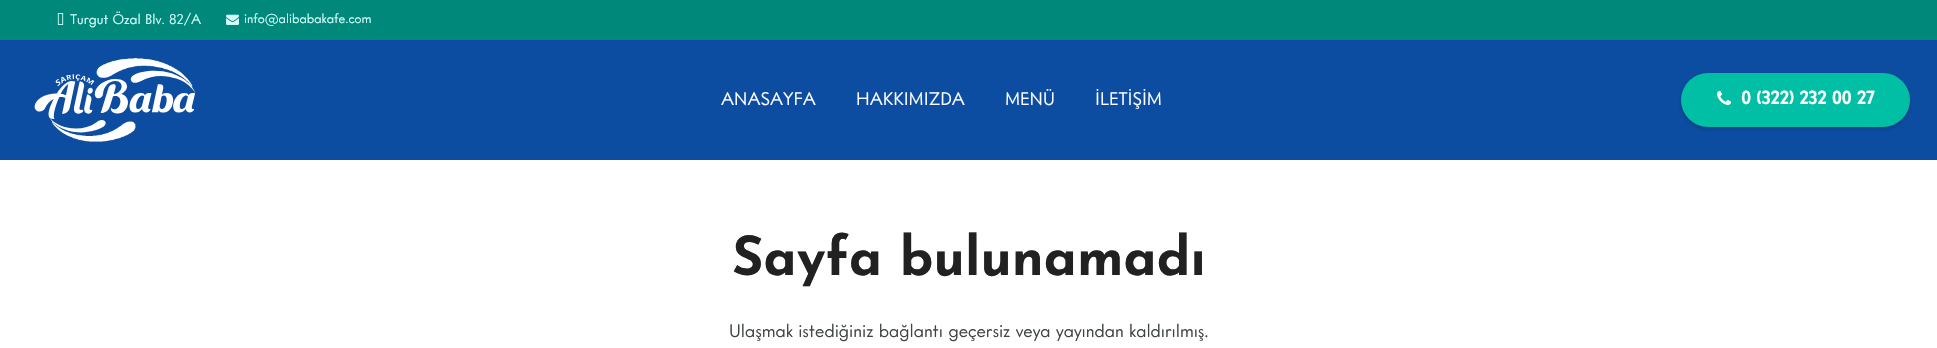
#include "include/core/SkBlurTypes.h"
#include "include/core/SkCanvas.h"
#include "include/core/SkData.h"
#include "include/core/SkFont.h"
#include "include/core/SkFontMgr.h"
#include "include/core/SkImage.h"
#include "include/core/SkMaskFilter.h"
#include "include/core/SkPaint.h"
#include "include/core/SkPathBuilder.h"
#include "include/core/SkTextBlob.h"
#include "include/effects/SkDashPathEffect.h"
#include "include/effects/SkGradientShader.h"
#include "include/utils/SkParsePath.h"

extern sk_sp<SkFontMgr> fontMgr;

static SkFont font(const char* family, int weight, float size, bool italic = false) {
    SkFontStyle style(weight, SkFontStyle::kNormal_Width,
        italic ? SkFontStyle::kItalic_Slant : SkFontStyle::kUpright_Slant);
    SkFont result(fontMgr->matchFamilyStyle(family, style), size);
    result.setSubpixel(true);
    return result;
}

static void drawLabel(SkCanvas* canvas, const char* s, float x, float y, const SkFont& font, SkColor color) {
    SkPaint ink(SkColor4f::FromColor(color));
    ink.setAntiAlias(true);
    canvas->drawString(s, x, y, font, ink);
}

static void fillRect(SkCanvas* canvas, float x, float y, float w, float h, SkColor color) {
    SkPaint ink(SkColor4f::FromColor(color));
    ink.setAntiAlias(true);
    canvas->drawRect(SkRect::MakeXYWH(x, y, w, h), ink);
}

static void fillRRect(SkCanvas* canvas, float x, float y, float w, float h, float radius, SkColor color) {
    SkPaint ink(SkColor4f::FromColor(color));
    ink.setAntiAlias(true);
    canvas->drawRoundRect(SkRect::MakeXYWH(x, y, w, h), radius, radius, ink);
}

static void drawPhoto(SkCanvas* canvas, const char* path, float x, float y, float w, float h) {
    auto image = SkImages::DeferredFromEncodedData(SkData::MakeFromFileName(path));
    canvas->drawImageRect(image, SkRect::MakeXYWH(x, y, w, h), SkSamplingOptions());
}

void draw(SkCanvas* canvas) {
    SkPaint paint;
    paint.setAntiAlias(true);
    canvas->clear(0xFFFFFFFF);
    fillRect(canvas, 0, 0, 1937, 40, 0xFF00897B);
    drawPhoto(canvas, "assets/img1.png", 57, 13, 7, 12);
    SkFont font1 = font("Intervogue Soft", 400, 14);
    drawLabel(canvas, "Turgut Özal Blv. 82/A", 70, 24, font1, 0xFFD6FFFB);
    drawPhoto(canvas, "assets/img2.png", 226, 14, 13, 11);
    SkFont font2 = font("Intervogue Soft", 400, 13);
    drawLabel(canvas, "info@alibabakafe.com", 244, 23, font2, 0xFFD6FFFB);
    fillRect(canvas, 0, 40, 1937, 120, 0xFF0C4DA2);
    drawPhoto(canvas, "assets/img3.png", 34, 58, 162, 84);
    SkFont font3 = font("Intervogue Soft", 400, 18);
    drawLabel(canvas, "ANASAYFA", 721, 105, font3, 0xFFFFFFFF);
    drawLabel(canvas, "HAKKIMIZDA", 856, 105, font3, 0xFFFFFFFF);
    drawLabel(canvas, "MENÜ", 1005, 105, font3, 0xFFFFFFFF);
    drawLabel(canvas, "İLETİŞİM", 1095, 105, font3, 0xFFFFFFFF);
    paint.setColor(0x33000000);
    paint.setMaskFilter(SkMaskFilter::MakeBlur(kNormal_SkBlurStyle, 2));
    canvas->drawRoundRect(SkRect::MakeXYWH(1681, 75, 229, 54), 27, 27, paint);
    paint.setMaskFilter(nullptr);
    fillRRect(canvas, 1681, 73, 229, 54, 27, 0xFF00BFA5);
    drawPhoto(canvas, "assets/img4.png", 1717, 90, 15, 15);
    SkFont font4 = font("Intervogue Soft", 700, 18);
    drawLabel(canvas, "0 (322) 232 00 27", 1741, 104, font4, 0xFFFFFFFF);
    SkFont font5 = font("Josefin Sans", 100, 54);
    drawLabel(canvas, "Sayfa bulunamadı", 732, 275, font5, 0xFF212121);
    drawLabel(canvas, "Ulaşmak istediğiniz bağlantı geçersiz veya yayından kaldırılmış.", 729, 337, font3, 0xFF3F4544);
}
